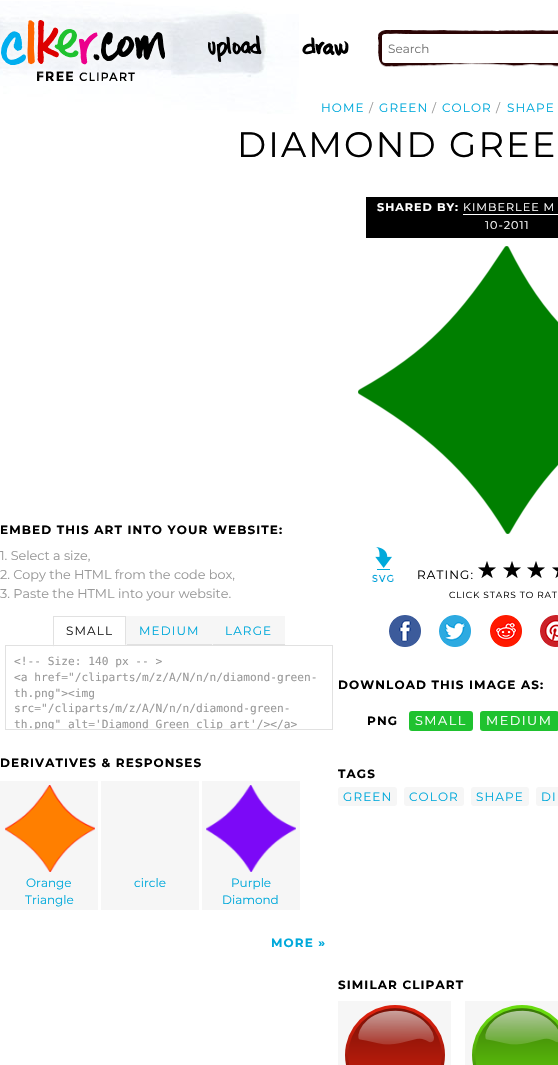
#include "include/core/SkBlurTypes.h"
#include "include/core/SkCanvas.h"
#include "include/core/SkData.h"
#include "include/core/SkFont.h"
#include "include/core/SkFontMgr.h"
#include "include/core/SkImage.h"
#include "include/core/SkMaskFilter.h"
#include "include/core/SkPaint.h"
#include "include/core/SkPathBuilder.h"
#include "include/core/SkTextBlob.h"
#include "include/effects/SkDashPathEffect.h"
#include "include/effects/SkGradientShader.h"
#include "include/utils/SkParsePath.h"

extern sk_sp<SkFontMgr> fontMgr;

static SkFont font(const char* family, int weight, float size, bool italic = false) {
    SkFontStyle style(weight, SkFontStyle::kNormal_Width,
        italic ? SkFontStyle::kItalic_Slant : SkFontStyle::kUpright_Slant);
    SkFont result(fontMgr->matchFamilyStyle(family, style), size);
    result.setSubpixel(true);
    return result;
}

static void drawLabel(SkCanvas* canvas, const char* s, float x, float y, const SkFont& font, SkColor color) {
    SkPaint ink(SkColor4f::FromColor(color));
    ink.setAntiAlias(true);
    canvas->drawString(s, x, y, font, ink);
}

static void drawTracked(SkCanvas* canvas, const char* s, float x, float y, const SkFont& font, const SkPaint& ink, float letter, float word) {
    std::vector<SkGlyphID> glyphs(font.countText(s, strlen(s), SkTextEncoding::kUTF8));
    std::vector<float> xs(glyphs.size());
    font.textToGlyphs(s, strlen(s), SkTextEncoding::kUTF8, glyphs);
    font.getXPos(glyphs, xs, x);
    float extra = 0;
    for (size_t i = 0; i < glyphs.size(); i++) {
        xs[i] += extra;
        extra += letter + word * (glyphs[i] == font.unicharToGlyph(' '));
    }
    canvas->drawTextBlob(SkTextBlob::MakeFromPosHGlyphs(glyphs, xs, y, font), 0, 0, ink);
}

static void fillRect(SkCanvas* canvas, float x, float y, float w, float h, SkColor color) {
    SkPaint ink(SkColor4f::FromColor(color));
    ink.setAntiAlias(true);
    canvas->drawRect(SkRect::MakeXYWH(x, y, w, h), ink);
}

static void fillRRect(SkCanvas* canvas, float x, float y, float w, float h, float radius, SkColor color) {
    SkPaint ink(SkColor4f::FromColor(color));
    ink.setAntiAlias(true);
    canvas->drawRoundRect(SkRect::MakeXYWH(x, y, w, h), radius, radius, ink);
}

static void drawPhoto(SkCanvas* canvas, const char* path, float x, float y, float w, float h) {
    auto image = SkImages::DeferredFromEncodedData(SkData::MakeFromFileName(path));
    canvas->drawImageRect(image, SkRect::MakeXYWH(x, y, w, h), SkSamplingOptions());
}

static SkPath parsePath(const char* data, bool evenOdd = false) {
    SkPath result = *SkParsePath::FromSVGString(data);
    if (evenOdd) result.setFillType(SkPathFillType::kEvenOdd);
    return result;
}

void draw(SkCanvas* canvas) {
    SkPaint paint;
    paint.setAntiAlias(true);
    canvas->clear(0xFFFFFFFF);
    drawPhoto(canvas, "assets/img1.png", 0, 1, 299, 113);
    drawPhoto(canvas, "assets/img2.png", 0, 18, 173, 63);
    drawPhoto(canvas, "assets/img3.png", 208, 35, 54, 27);
    drawPhoto(canvas, "assets/img4.png", 302, 37, 47, 19);
    drawPhoto(canvas, "assets/img5.png", 378, 30, 180, 37);
    fillRRect(canvas, 382, 34, 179, 29, 3, 0xFFFFFFFF);
    SkFont font1 = font("Montserrat", 400, 12);
    drawLabel(canvas, "Search", 388, 53, font1, 0xFF757575);
    paint.setColor(0xFF00A9DB);
    drawTracked(canvas, "HOME", 321, 112, font1, paint, 1.1f, 0);
    paint.setColor(0xFF999999);
    drawTracked(canvas, "/", 369, 112, font1, paint, 1.1f, 0);
    paint.setColor(0xFF00A9DB);
    drawTracked(canvas, "GREEN", 379, 112, font1, paint, 1.1f, 0);
    paint.setColor(0xFF999999);
    drawTracked(canvas, "/", 432, 112, font1, paint, 1.1f, 0);
    paint.setColor(0xFF00A9DB);
    drawTracked(canvas, "COLOR", 442, 112, font1, paint, 1.1f, 0);
    paint.setColor(0xFF999999);
    drawTracked(canvas, "/", 496, 112, font1, paint, 1.1f, 0);
    paint.setColor(0xFF00A9DB);
    drawTracked(canvas, "SHAPE", 507, 112, font1, paint, 1.1f, 0);
    SkFont font2 = font("Montserrat", 400, 35.25f);
    paint.setColor(0xFF000000);
    drawTracked(canvas, "DIAMOND GREE", 237, 157, font2, paint, 2.1f, 0);
    SkFont font3 = font("Montserrat", 700, 12);
    drawTracked(canvas, "EMBED THIS ART INTO YOUR WEBSITE:", 0, 534, font3, paint, 1.1f, 0);
    SkFont font4 = font("Montserrat", 400, 12.75f);
    drawLabel(canvas, "1. Select a size,", 0, 560, font4, 0xFF999999);
    drawLabel(canvas, "2. Copy the HTML from the code box,", 0, 579, font4, 0xFF999999);
    drawLabel(canvas, "3. Paste the HTML into your website.", 0, 598, font4, 0xFF999999);
    paint.setColor(0xFF222222);
    drawTracked(canvas, "SMALL", 66, 635, font1, paint, 1.1f, 0);
    fillRect(canvas, 53, 616, 73, 1, 0xFFE1E1E1);
    paint.setColor(0xFFE1E1E1);
    canvas->drawPath(parsePath("M126 616V647L125 644V617Z"), paint);
    paint.setColor(0xFFFFFFFF);
    canvas->drawPath(parsePath("M126 647H53L54 644H125Z"), paint);
    paint.setColor(0xFFE1E1E1);
    canvas->drawPath(parsePath("M53 647V616L54 617V644Z"), paint);
    fillRect(canvas, 127, 616, 85, 28, 0xFFF6F6F6);
    paint.setColor(0xFF00A9DB);
    drawTracked(canvas, "MEDIUM", 139, 635, font1, paint, 1.1f, 0);
    fillRect(canvas, 126, 644, 159, 1, 0xFFE1E1E1);
    fillRect(canvas, 126, 616, 1, 29, 0xFFF6F6F6);
    fillRect(canvas, 213, 616, 72, 28, 0xFFF6F6F6);
    drawTracked(canvas, "LARGE", 225, 635, font1, paint, 1.1f, 0);
    fillRect(canvas, 212, 616, 1, 29, 0xFFF6F6F6);
    paint.setStroke(true);
    paint.setStrokeWidth(1);
    paint.setColor(0xFFE1E1E1);
    canvas->drawRect(SkRect::MakeXYWH(5.5f, 645.5f, 327, 84), paint);
    SkFont font5 = font("DejaVu Sans Mono", 400, 11.2f);
    drawLabel(canvas, "<!-- Size: 140 px -- >", 14, 665, font5, 0xFF999999);
    drawLabel(canvas, "<a href=\"/cliparts/m/z/A/N/n/n/diamond-green-", 14, 681, font5, 0xFF999999);
    drawLabel(canvas, "th.png\"><img", 14, 697, font5, 0xFF999999);
    drawLabel(canvas, "src=\"/cliparts/m/z/A/N/n/n/diamond-green-", 14, 712, font5, 0xFF999999);
    canvas->save();
    canvas->clipRect(SkRect::MakeXYWH(6, 646, 326, 83));
    drawLabel(canvas, "th.png\" alt='Diamond Green clip art'/></a>", 14, 728, font5, 0xFF999999);
    canvas->restore();
    paint.setStroke(false);
    paint.setColor(0xFF000000);
    drawTracked(canvas, "DERIVATIVES & RESPONSES", 0, 767, font3, paint, 1.1f, 0);
    fillRect(canvas, 0, 781, 98, 129, 0xFFF6F6F6);
    drawPhoto(canvas, "assets/img6.png", 5, 785, 90, 87);
    drawLabel(canvas, "Orange", 26, 887, font1, 0xFF00A9DB);
    drawLabel(canvas, "Triangle", 25, 904, font1, 0xFF00A9DB);
    fillRect(canvas, 101, 781, 98, 129, 0xFFF6F6F6);
    drawLabel(canvas, "circle", 134, 887, font1, 0xFF00A9DB);
    fillRect(canvas, 202, 781, 98, 129, 0xFFF6F6F6);
    drawPhoto(canvas, "assets/img7.png", 206, 785, 90, 87);
    drawLabel(canvas, "Purple", 231, 887, font1, 0xFF00A9DB);
    drawLabel(canvas, "Diamond", 222, 904, font1, 0xFF00A9DB);
    paint.setColor(0xFF00A9DB);
    drawTracked(canvas, "MORE »", 271, 947, font3, paint, 1.1f, 0);
    fillRect(canvas, 366, 197, 192, 41, 0xFF000000);
    SkFont font6 = font("Montserrat", 700, 11.2f);
    paint.setColor(0xFFFFFFFF);
    drawTracked(canvas, "SHARED BY:", 377, 211, font6, paint, 1, 0);
    SkFont font7 = font("Montserrat", 400, 11.2f);
    drawTracked(canvas, "KIMBERLEE M", 463, 211, font7, paint, 1, 0);
    fillRect(canvas, 463, 214, 95, 1, 0xFFFFFFFF);
    drawTracked(canvas, "10-2011", 485, 229, font7, paint, 1, 0);
    drawPhoto(canvas, "assets/img8.png", 358, 246, 200, 288);
    drawPhoto(canvas, "assets/img9.png", 372, 547, 22, 35);
    paint.setColor(0xFF000000);
    drawTracked(canvas, "RATING:", 417, 579, font1, paint, 1.1f, 0);
    drawPhoto(canvas, "assets/img10.png", 478, 561, 18, 17);
    drawPhoto(canvas, "assets/img10.png", 503, 561, 18, 17);
    drawPhoto(canvas, "assets/img10.png", 527, 561, 18, 17);
    drawPhoto(canvas, "assets/img11.png", 552, 567, 6, 11);
    SkFont font8 = font("Montserrat", 400, 9);
    drawTracked(canvas, "CLICK STARS TO RAT", 449, 598, font8, paint, 0.8f, 0);
    drawPhoto(canvas, "assets/img12.png", 389, 615, 32, 32);
    drawPhoto(canvas, "assets/img13.png", 439, 615, 32, 32);
    drawPhoto(canvas, "assets/img14.png", 490, 615, 32, 32);
    drawPhoto(canvas, "assets/img15.png", 540, 615, 18, 32);
    drawTracked(canvas, "DOWNLOAD THIS IMAGE AS:", 338, 689, font3, paint, 1.1f, 0);
    drawTracked(canvas, "PNG", 367, 725, font3, paint, 1.1f, 0);
    fillRRect(canvas, 409, 711, 64, 20, 3, 0xFF1FC22F);
    paint.setColor(0xFFFFFFFF);
    drawTracked(canvas, "SMALL", 415, 725, font4, paint, 1.5f, 0);
    fillRRect(canvas, 480, 711, 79, 20, 3, 0xFF1FC22F);
    drawTracked(canvas, "MEDIUM", 486, 725, font4, paint, 1.5f, 0);
    paint.setColor(0xFF000000);
    drawTracked(canvas, "TAGS", 338, 778, font3, paint, 1.1f, 0);
    fillRRect(canvas, 338, 787, 59, 19, 3, 0xFFF6F6F6);
    paint.setColor(0xFF00A9DB);
    drawTracked(canvas, "GREEN", 343, 801, font1, paint, 1.1f, 0);
    fillRRect(canvas, 404, 787, 60, 19, 3, 0xFFF6F6F6);
    drawTracked(canvas, "COLOR", 409, 801, font1, paint, 1.1f, 0);
    fillRRect(canvas, 471, 787, 58, 19, 3, 0xFFF6F6F6);
    drawTracked(canvas, "SHAPE", 476, 801, font1, paint, 1.1f, 0);
    fillRRect(canvas, 536, 787, 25, 19, 3, 0xFFF6F6F6);
    drawTracked(canvas, "DI", 541, 801, font1, paint, 1.1f, 0);
    paint.setColor(0xFF000000);
    drawTracked(canvas, "SIMILAR CLIPART", 338, 989, font3, paint, 1.1f, 0);
    fillRect(canvas, 338, 1001, 113, 64, 0xFFF6F6F6);
    drawPhoto(canvas, "assets/img16.png", 345, 1005, 100, 60);
    fillRect(canvas, 465, 1001, 93, 64, 0xFFF6F6F6);
    drawPhoto(canvas, "assets/img17.png", 472, 1005, 86, 60);
}
